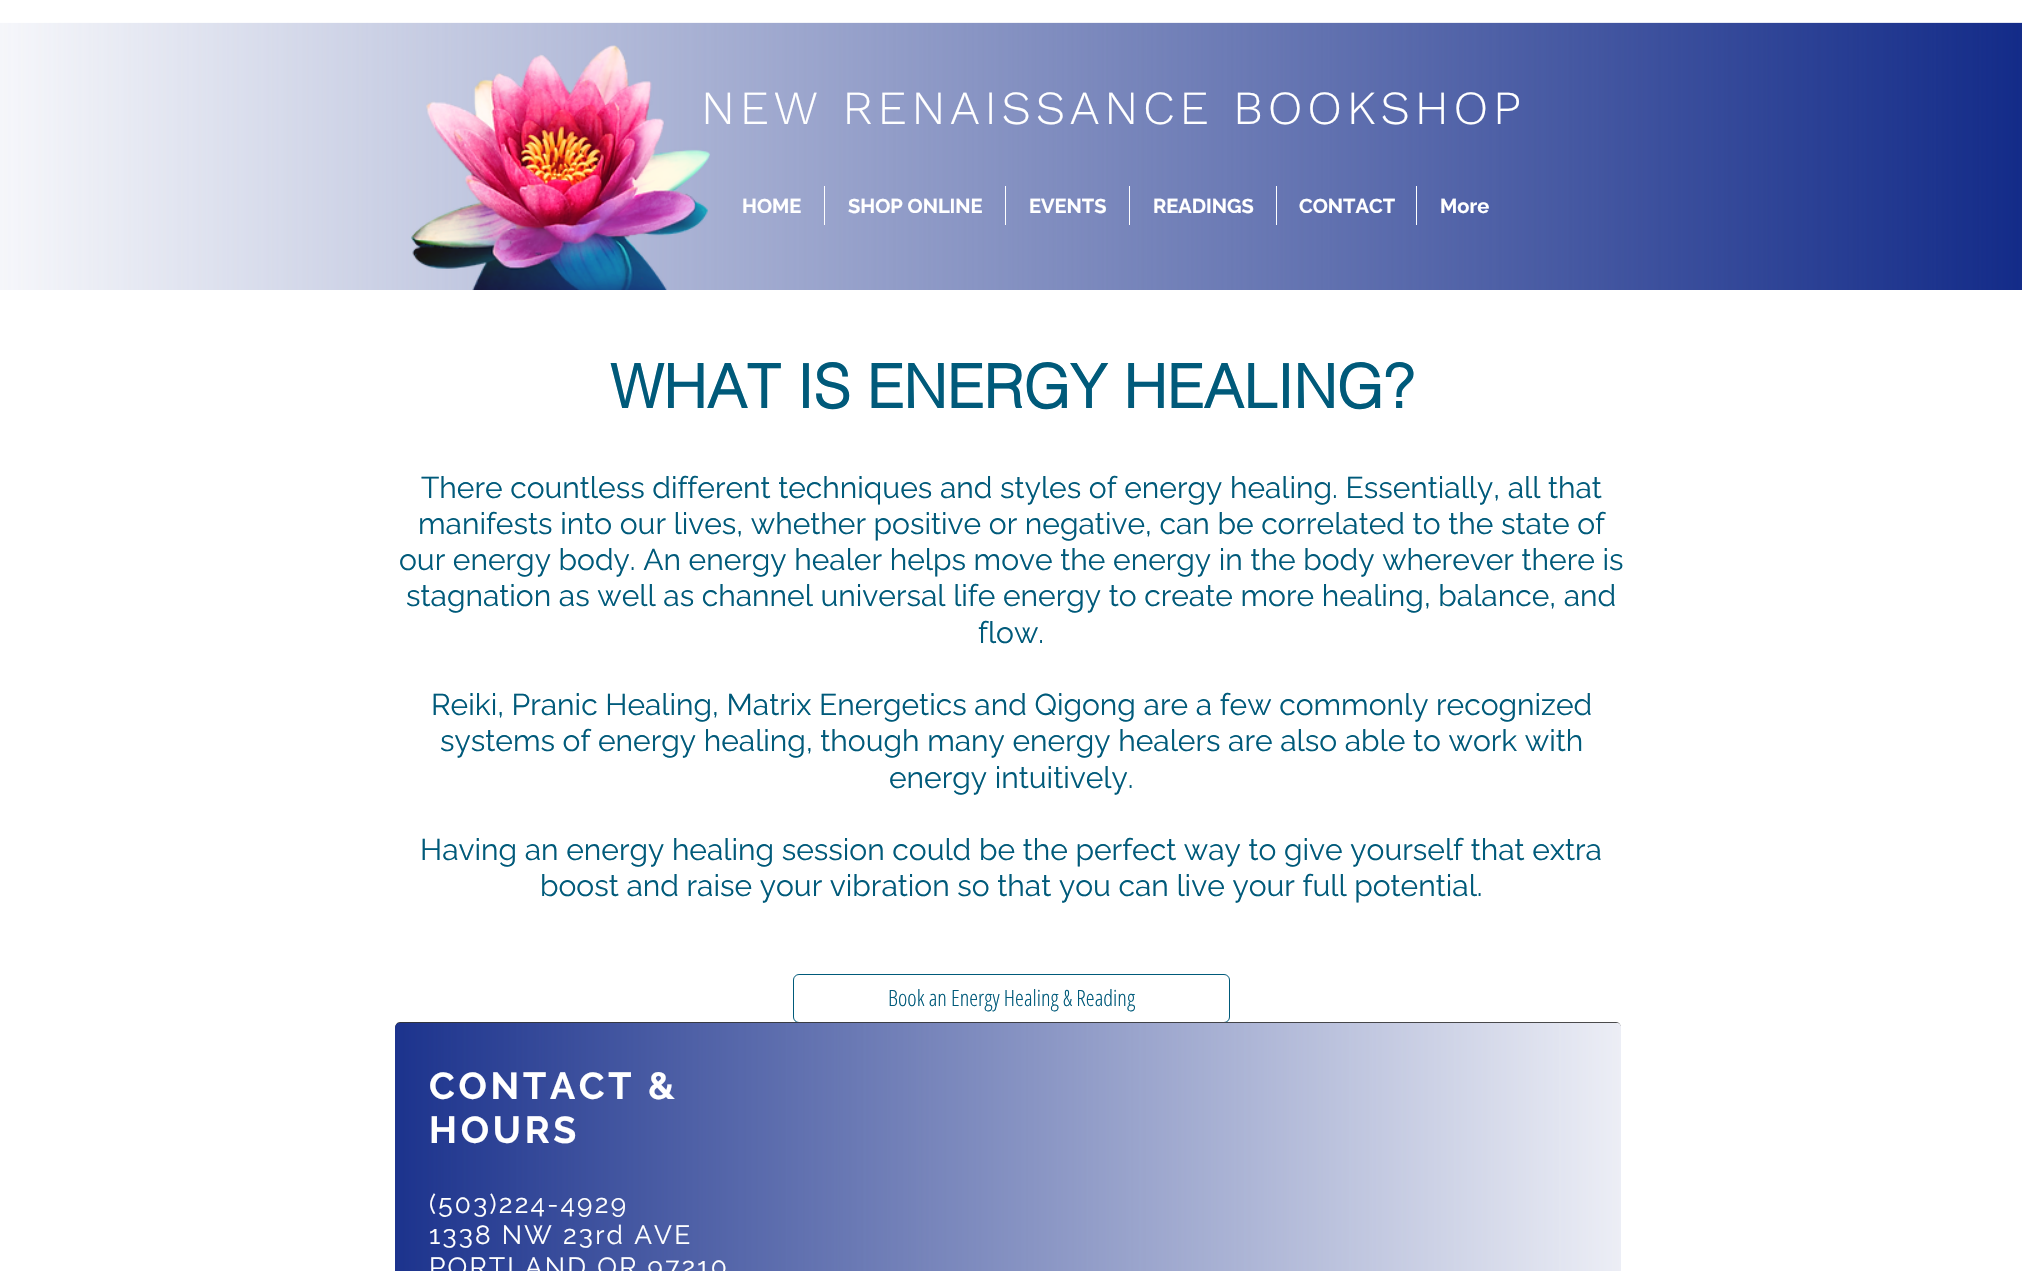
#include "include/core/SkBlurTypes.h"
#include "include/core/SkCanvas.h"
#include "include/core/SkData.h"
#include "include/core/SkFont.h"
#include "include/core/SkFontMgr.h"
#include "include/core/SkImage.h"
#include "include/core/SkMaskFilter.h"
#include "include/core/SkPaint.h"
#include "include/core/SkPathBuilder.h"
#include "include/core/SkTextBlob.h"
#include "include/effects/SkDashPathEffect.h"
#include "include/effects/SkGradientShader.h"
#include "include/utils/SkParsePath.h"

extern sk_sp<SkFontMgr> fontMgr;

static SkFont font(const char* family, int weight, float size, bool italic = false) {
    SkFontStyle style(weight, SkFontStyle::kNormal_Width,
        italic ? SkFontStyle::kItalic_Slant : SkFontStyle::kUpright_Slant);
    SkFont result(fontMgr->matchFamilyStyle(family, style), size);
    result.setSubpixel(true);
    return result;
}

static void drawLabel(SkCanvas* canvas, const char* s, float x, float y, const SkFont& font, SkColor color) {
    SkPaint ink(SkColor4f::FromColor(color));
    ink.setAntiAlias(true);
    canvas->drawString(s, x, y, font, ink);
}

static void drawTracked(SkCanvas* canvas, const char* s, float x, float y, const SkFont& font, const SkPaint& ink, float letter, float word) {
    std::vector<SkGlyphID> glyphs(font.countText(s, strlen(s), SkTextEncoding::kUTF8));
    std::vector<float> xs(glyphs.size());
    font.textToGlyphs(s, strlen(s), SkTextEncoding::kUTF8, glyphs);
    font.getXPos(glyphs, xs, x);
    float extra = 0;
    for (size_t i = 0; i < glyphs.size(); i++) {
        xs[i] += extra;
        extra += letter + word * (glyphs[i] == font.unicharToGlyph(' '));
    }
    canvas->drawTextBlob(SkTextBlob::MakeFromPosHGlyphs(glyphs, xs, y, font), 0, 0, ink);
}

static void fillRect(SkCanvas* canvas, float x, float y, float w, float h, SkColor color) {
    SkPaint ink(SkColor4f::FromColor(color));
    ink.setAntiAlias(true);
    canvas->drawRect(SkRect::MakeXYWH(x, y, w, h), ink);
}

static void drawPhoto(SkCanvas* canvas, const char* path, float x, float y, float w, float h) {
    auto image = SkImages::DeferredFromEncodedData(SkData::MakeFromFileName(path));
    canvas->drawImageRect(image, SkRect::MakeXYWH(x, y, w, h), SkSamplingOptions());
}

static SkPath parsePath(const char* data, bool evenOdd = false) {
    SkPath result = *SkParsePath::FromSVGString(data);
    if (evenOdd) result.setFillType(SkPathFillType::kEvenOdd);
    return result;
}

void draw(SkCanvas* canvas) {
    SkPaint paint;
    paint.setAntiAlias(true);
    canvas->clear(0xFFFFFFFF);
    drawPhoto(canvas, "assets/img1.png", 0, 22, 2022, 268);
    drawPhoto(canvas, "assets/img2.png", 411, 45, 299, 245);
    SkFont font1 = font("Work Sans", 300, 47.5f);
    paint.setColor(0xFFFFFFFF);
    drawTracked(canvas, "NEW RENAISSANCE BOOKSHOP", 701, 124, font1, paint, 4.75f, 0);
    SkFont font2 = font("Raleway", 700, 20);
    drawLabel(canvas, "HOME", 742, 213, font2, 0xFFFFFFFF);
    fillRect(canvas, 824, 186, 1, 39, 0xFFFFFFFF);
    drawLabel(canvas, "SHOP ONLINE", 848, 213, font2, 0xFFFFFFFF);
    fillRect(canvas, 1005, 186, 1, 39, 0xFFFFFFFF);
    drawLabel(canvas, "EVENTS", 1029, 213, font2, 0xFFFFFFFF);
    fillRect(canvas, 1129, 186, 1, 39, 0xFFFFFFFF);
    drawLabel(canvas, "READINGS", 1153, 213, font2, 0xFFFFFFFF);
    fillRect(canvas, 1276, 186, 1, 39, 0xFFFFFFFF);
    drawLabel(canvas, "CONTACT", 1299, 213, font2, 0xFFFFFFFF);
    fillRect(canvas, 1416, 186, 1, 39, 0xFFFFFFFF);
    drawLabel(canvas, "More", 1440, 213, font2, 0xFFFFFFFF);
    SkFont font3 = font("helvetica", 700, 60);
    drawLabel(canvas, "WHAT IS ENERGY HEALING?", 610, 408, font3, 0xFF005A7A);
    SkFont font4 = font("Raleway", 400, 30);
    drawLabel(canvas, "There countless different techniques and styles of energy healing. Essentially, all that", 421, 498, font4, 0xFF005A7A);
    drawLabel(canvas, "manifests into our lives, whether positive or negative, can be correlated to the state of", 418, 534, font4, 0xFF005A7A);
    drawLabel(canvas, "our energy body. An energy healer helps move the energy in the body wherever there is", 399, 570, font4, 0xFF005A7A);
    drawLabel(canvas, "stagnation as well as channel universal life energy to create more healing, balance, and", 406, 606, font4, 0xFF005A7A);
    drawLabel(canvas, "flow.", 978, 643, font4, 0xFF005A7A);
    drawLabel(canvas, "Reiki, Pranic Healing, Matrix Energetics and Qigong are a few commonly recognized", 431, 715, font4, 0xFF005A7A);
    drawLabel(canvas, "systems of energy healing, though many energy healers are also able to work with", 440, 751, font4, 0xFF005A7A);
    drawLabel(canvas, "energy intuitively.", 889, 788, font4, 0xFF005A7A);
    drawLabel(canvas, "Having an energy healing session could be the perfect way to give yourself that extra", 420, 860, font4, 0xFF005A7A);
    drawLabel(canvas, "boost and raise your vibration so that you can live your full potential.", 540, 896, font4, 0xFF005A7A);
    paint.setStroke(true);
    paint.setStrokeWidth(1);
    paint.setColor(0xFF005A7A);
    canvas->drawRoundRect(SkRect::MakeXYWH(793.5f, 974.5f, 436, 48), 5.5f, 5.5f, paint);
    SkFont font5 = font("Open Sans Condensed", 300, 22.5f);
    drawLabel(canvas, "Book an Energy Healing & Reading", 888, 1006, font5, 0xFF005A7A);
    paint.setStroke(false);
    paint.setColor(0xFF333333);
    canvas->drawPath(parsePath("M1616 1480H400C397 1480 395 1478 395 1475V1028C395 1025 397 1022 400 1022H1616C1619 1022 1621 1025 1621 1028V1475C1621 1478 1619 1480 1616 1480Z"), paint);
    drawPhoto(canvas, "assets/img3.png", 395, 1022, 1226, 249);
    SkFont font6 = font("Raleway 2", 700, 37.5f);
    paint.setColor(0xFFFFFFFF);
    drawTracked(canvas, "CONTACT &", 429, 1099, font6, paint, 3.75f, 0);
    drawTracked(canvas, "HOURS", 429, 1143, font6, paint, 3.75f, 0);
    SkFont font7 = font("Raleway", 400, 26.25f);
    drawTracked(canvas, "(503)224-4929", 429, 1213, font7, paint, 2.25f, 0);
    drawTracked(canvas, "1338 NW 23rd AVE", 429, 1244, font7, paint, 2.25f, 0);
    drawTracked(canvas, "PORTLAND OR 97210", 429, 1276, font7, paint, 2.25f, 0);
}
